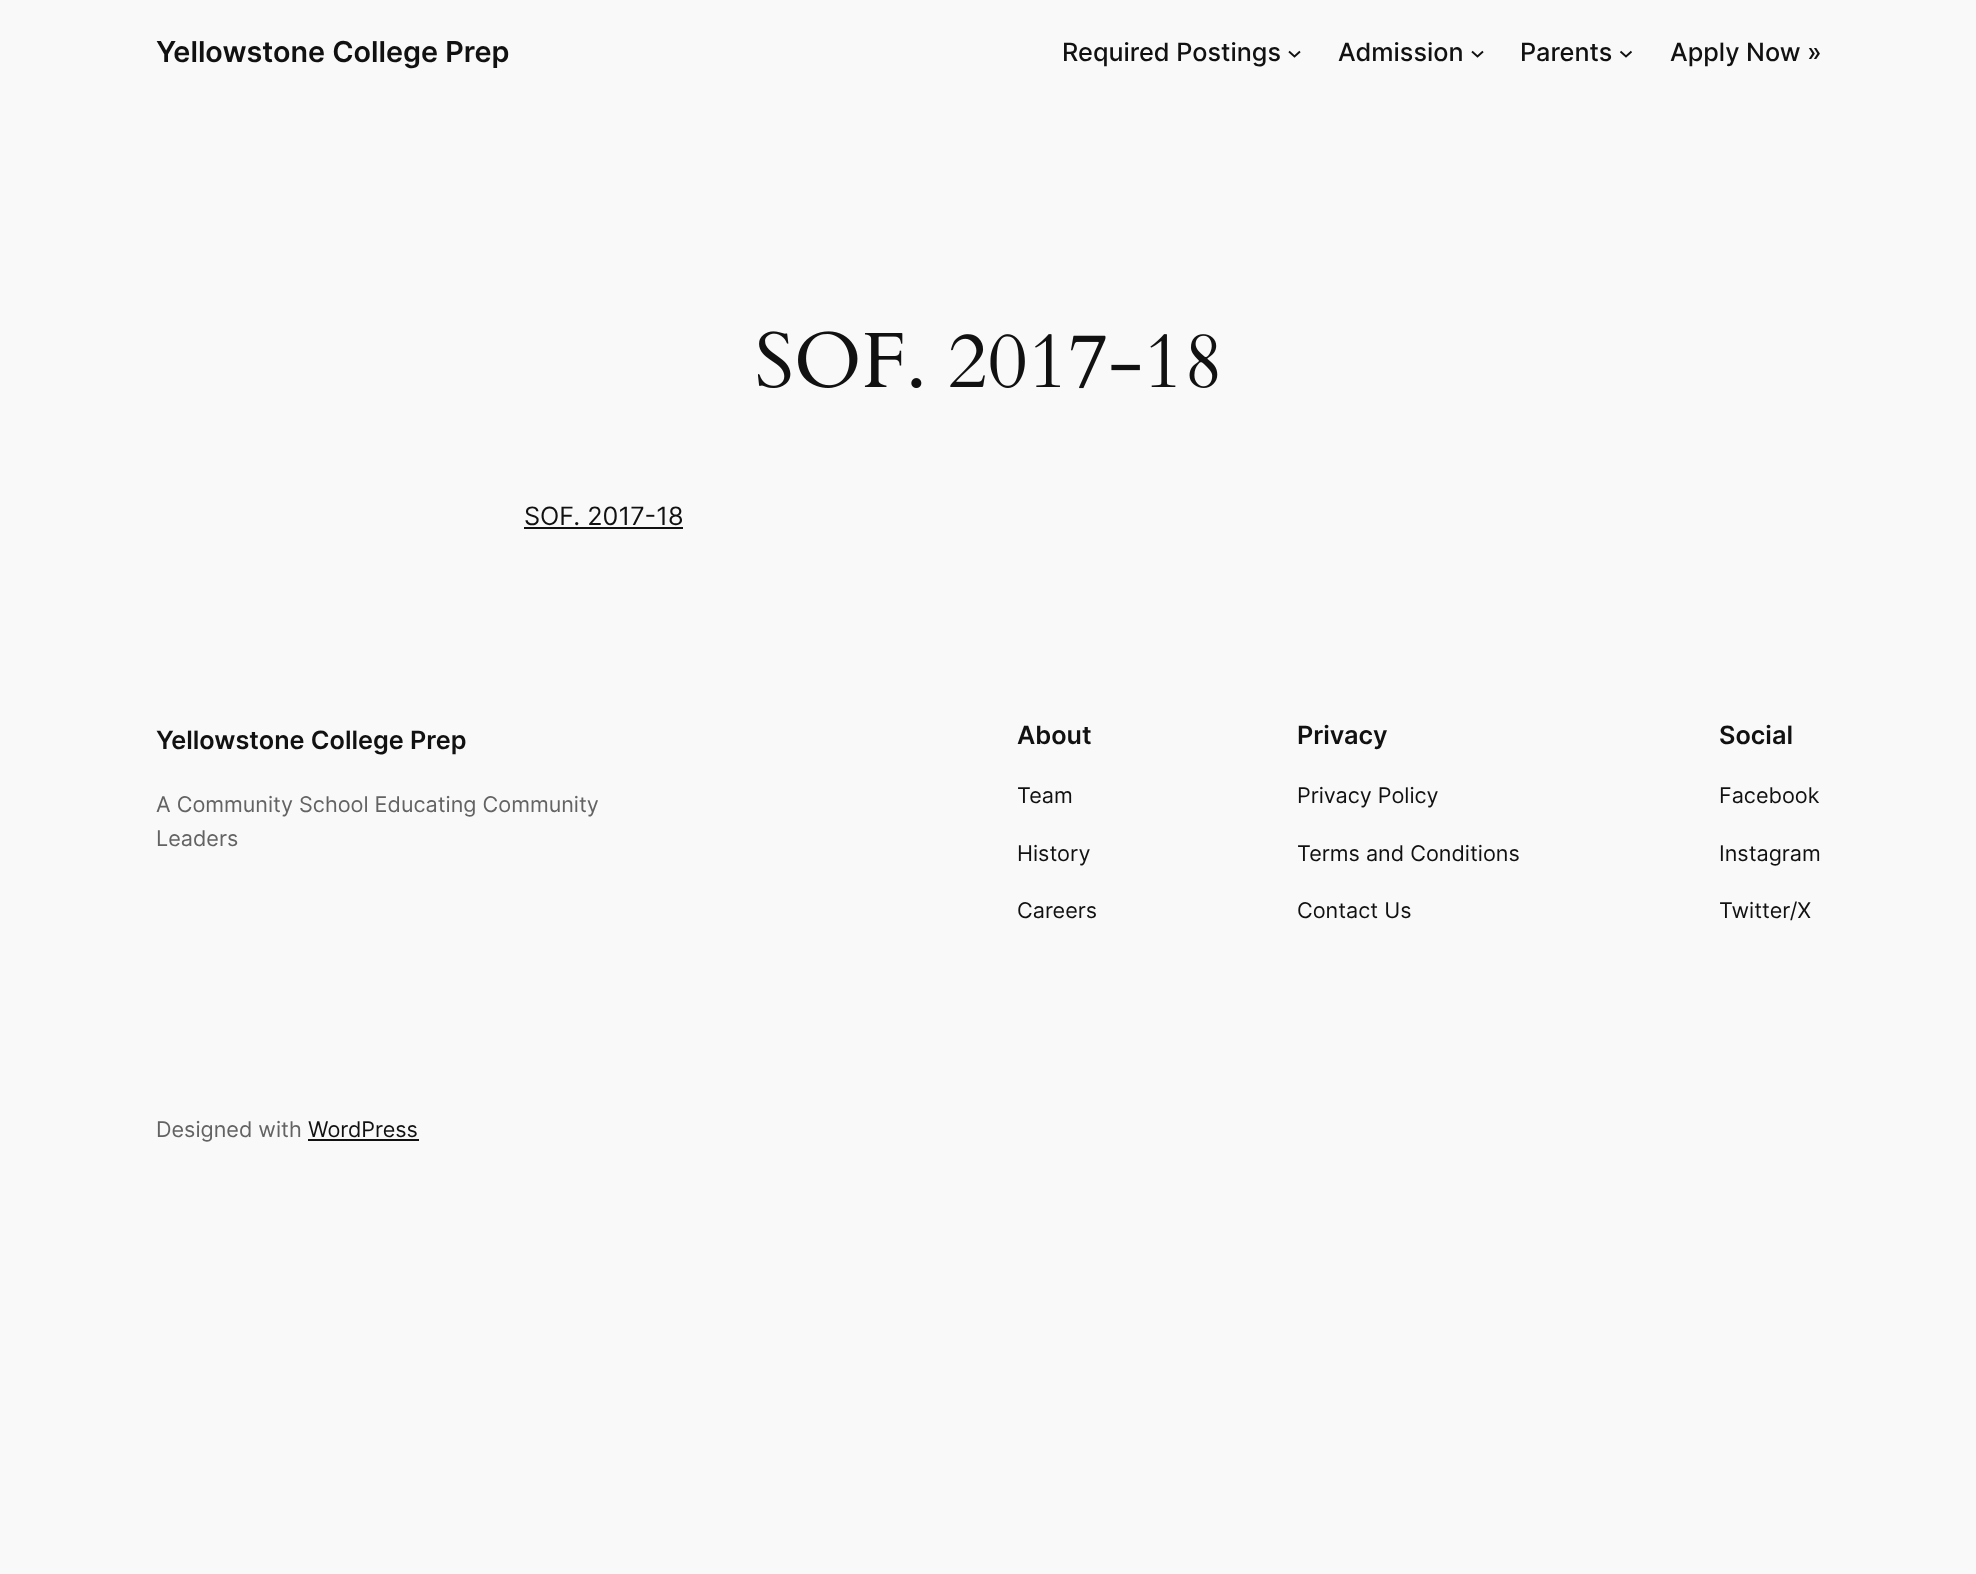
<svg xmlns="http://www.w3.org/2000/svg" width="1976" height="1574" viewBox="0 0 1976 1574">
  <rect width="100%" height="100%" fill="rgb(249,249,249)"/>
  <text x="156" y="62" font-family="Inter" font-size="28.75" font-weight="600" fill="rgb(17,17,17)">Yellowstone College Prep</text>
  <text x="1062" y="61" font-family="Inter" font-size="25.25" font-weight="500" fill="rgb(17,17,17)">Required Postings</text>
  <path d="M1289 51.5L1294.5 56.5L1300 51.5" fill="none" stroke="rgb(17,17,17)" stroke-width="1.9"/>
  <text x="1338" y="61" font-family="Inter" font-size="25.25" font-weight="500" fill="rgb(17,17,17)">Admission</text>
  <path d="M1472 51.5L1477.5 56.5L1483 51.5" fill="none" stroke="rgb(17,17,17)" stroke-width="1.9"/>
  <text x="1520" y="61" font-family="Inter" font-size="25.25" font-weight="500" fill="rgb(17,17,17)">Parents</text>
  <path d="M1620.5 51.5L1626 56.5L1631.5 51.5" fill="none" stroke="rgb(17,17,17)" stroke-width="1.9"/>
  <text x="1670" y="61" font-family="Inter" font-size="25.25" font-weight="500" fill="rgb(17,17,17)">Apply Now »</text>
  <image x="758" y="331" width="460" height="58" href="pic1.png"/>
  <text x="524" y="525" font-family="Inter" font-size="25.25" fill="rgb(17,17,17)">SOF. 2017-18</text>
  <rect x="524" y="527" width="159" height="2" fill="rgb(17,17,17)"/>
  <text x="156" y="749" font-family="Inter" font-size="25.25" font-weight="600" fill="rgb(17,17,17)">Yellowstone College Prep</text>
  <g font-family="Inter" font-size="21.6" fill="rgb(99,99,99)">
    <text>
      <tspan x="156" y="812">A Community School Educating Community</tspan>
      <tspan x="156" y="846">Leaders</tspan>
    </text>
  </g>
  <text x="1017" y="744" font-family="Inter" font-size="25.25" font-weight="600" fill="rgb(17,17,17)">About</text>
  <g font-family="Inter" font-size="21.6" fill="rgb(17,17,17)">
    <text x="1017" y="803">Team</text>
    <text x="1017" y="861">History</text>
    <text x="1017" y="918">Careers</text>
  </g>
  <text x="1297" y="744" font-family="Inter" font-size="25.25" font-weight="600" fill="rgb(17,17,17)">Privacy</text>
  <g font-family="Inter" font-size="21.6" fill="rgb(17,17,17)">
    <text x="1297" y="803">Privacy Policy</text>
    <text x="1297" y="861">Terms and Conditions</text>
    <text x="1297" y="918">Contact Us</text>
  </g>
  <text x="1719" y="744" font-family="Inter" font-size="25.25" font-weight="600" fill="rgb(17,17,17)">Social</text>
  <g font-family="Inter" font-size="21.6" fill="rgb(17,17,17)">
    <text x="1719" y="803">Facebook</text>
    <text x="1719" y="861">Instagram</text>
    <text x="1719" y="918">Twitter/X</text>
  </g>
  <text x="156" y="1137" font-family="Inter" font-size="21.6" fill="rgb(99,99,99)">Designed with</text>
  <text x="308" y="1137" font-family="Inter" font-size="21.6" fill="rgb(17,17,17)">WordPress</text>
  <rect x="308" y="1139" width="111" height="2" fill="rgb(17,17,17)"/>
</svg>
